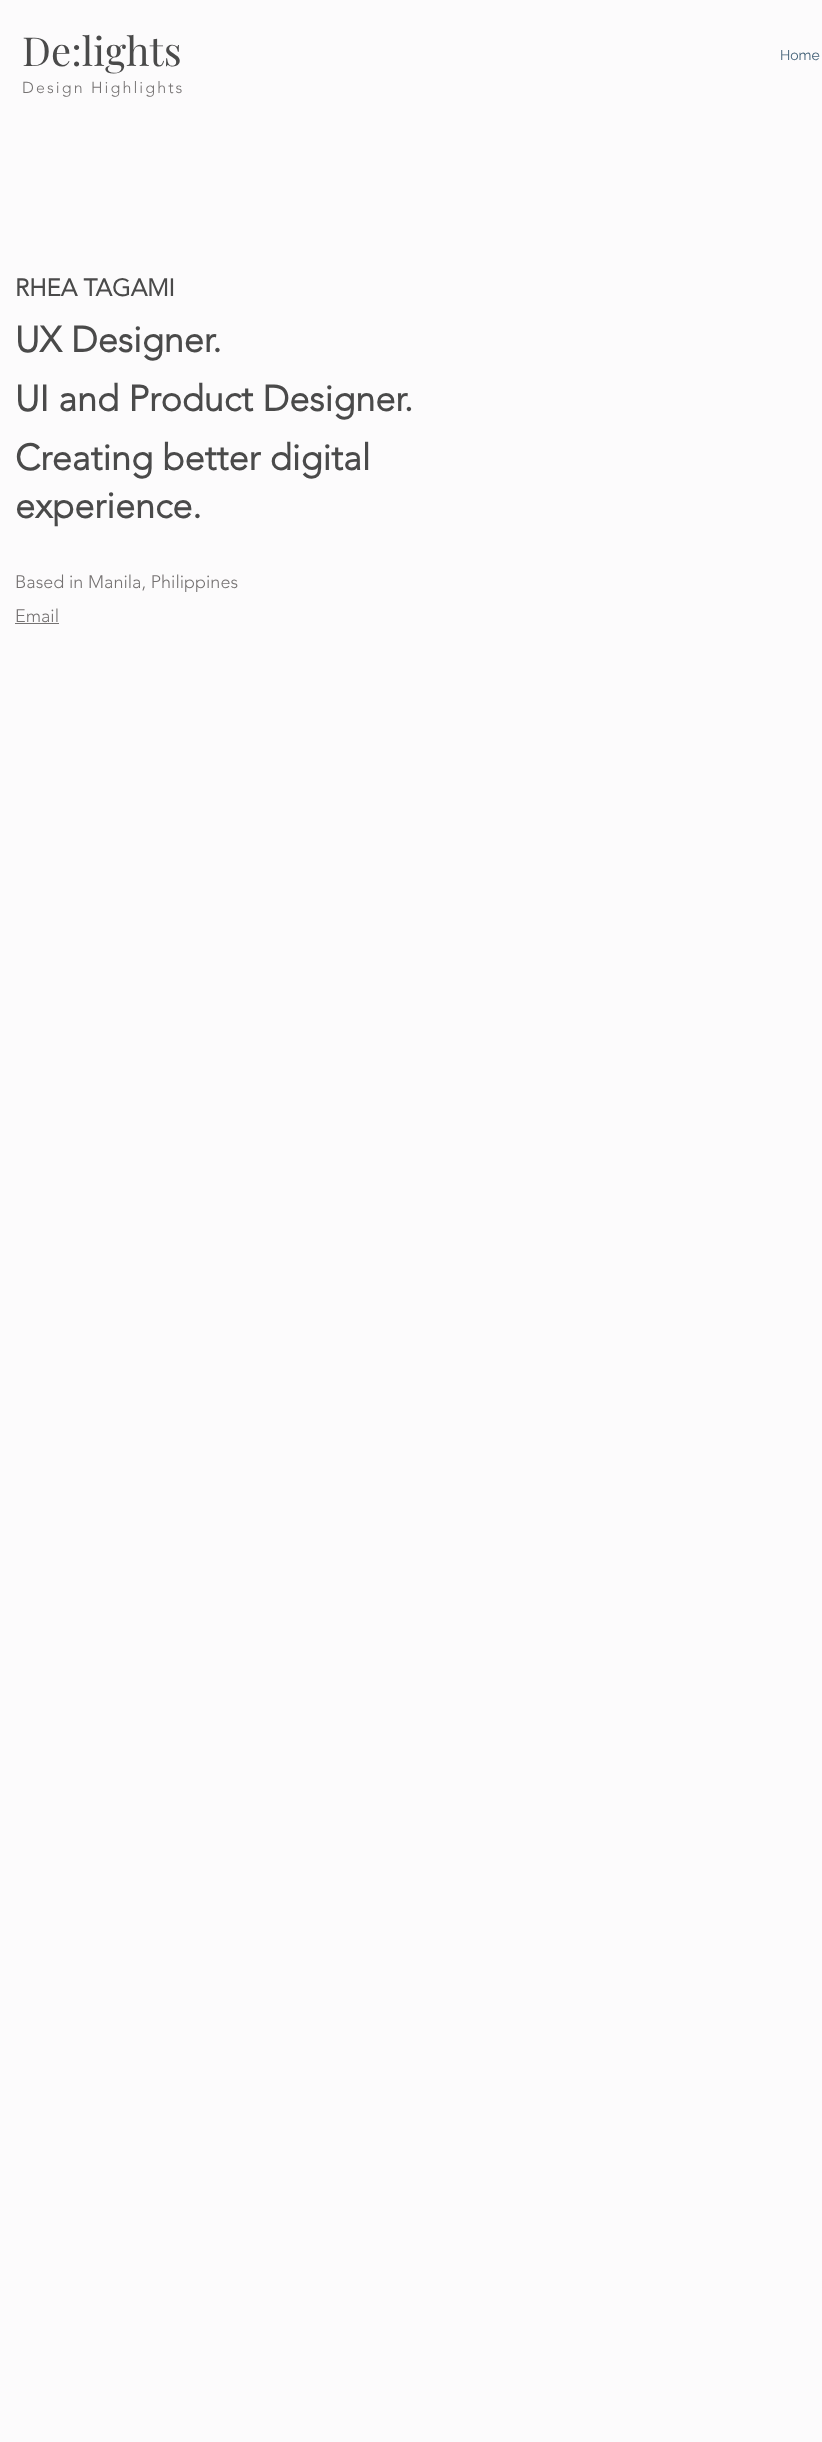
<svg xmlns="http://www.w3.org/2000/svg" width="822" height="2442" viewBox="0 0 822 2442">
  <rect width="100%" height="100%" fill="rgb(252,251,252)"/>
  <text x="22" y="66" font-family="Playfair Display" font-size="40" fill="rgb(74,74,74)">De:lights</text>
  <text x="22" y="93" font-family="'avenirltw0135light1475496'" font-size="16" font-weight="300" letter-spacing="2.1" fill="rgb(117,114,114)">Design Highlights</text>
  <text x="780" y="60" font-family="Raleway" font-size="14" fill="rgb(68,98,120)">Home</text>
  <text x="15" y="296" font-family="'avenirltw0135light1475496'" font-size="24" font-weight="bold" fill="rgb(74,74,74)">RHEA TAGAMI</text>
  <g font-family="'avenirltw0135light1475496'" font-size="36" font-weight="bold" fill="rgb(74,74,74)">
    <text>
      <tspan x="15" y="352">UX Designer.</tspan>
      <tspan x="15" y="411">UI and Product Designer.</tspan>
      <tspan x="15" y="470">Creating better digital</tspan>
      <tspan x="15" y="518">experience.</tspan>
    </text>
  </g>
  <g font-family="'avenirltw0135light1475496'" font-size="18" font-weight="300" fill="rgb(117,114,114)">
    <text>
      <tspan x="15" y="588">Based in Manila, Philippines</tspan>
      <tspan x="15" y="622">Email</tspan>
    </text>
  </g>
  <rect x="15" y="623" width="44" height="1" fill="rgb(117,114,114)"/>
</svg>
